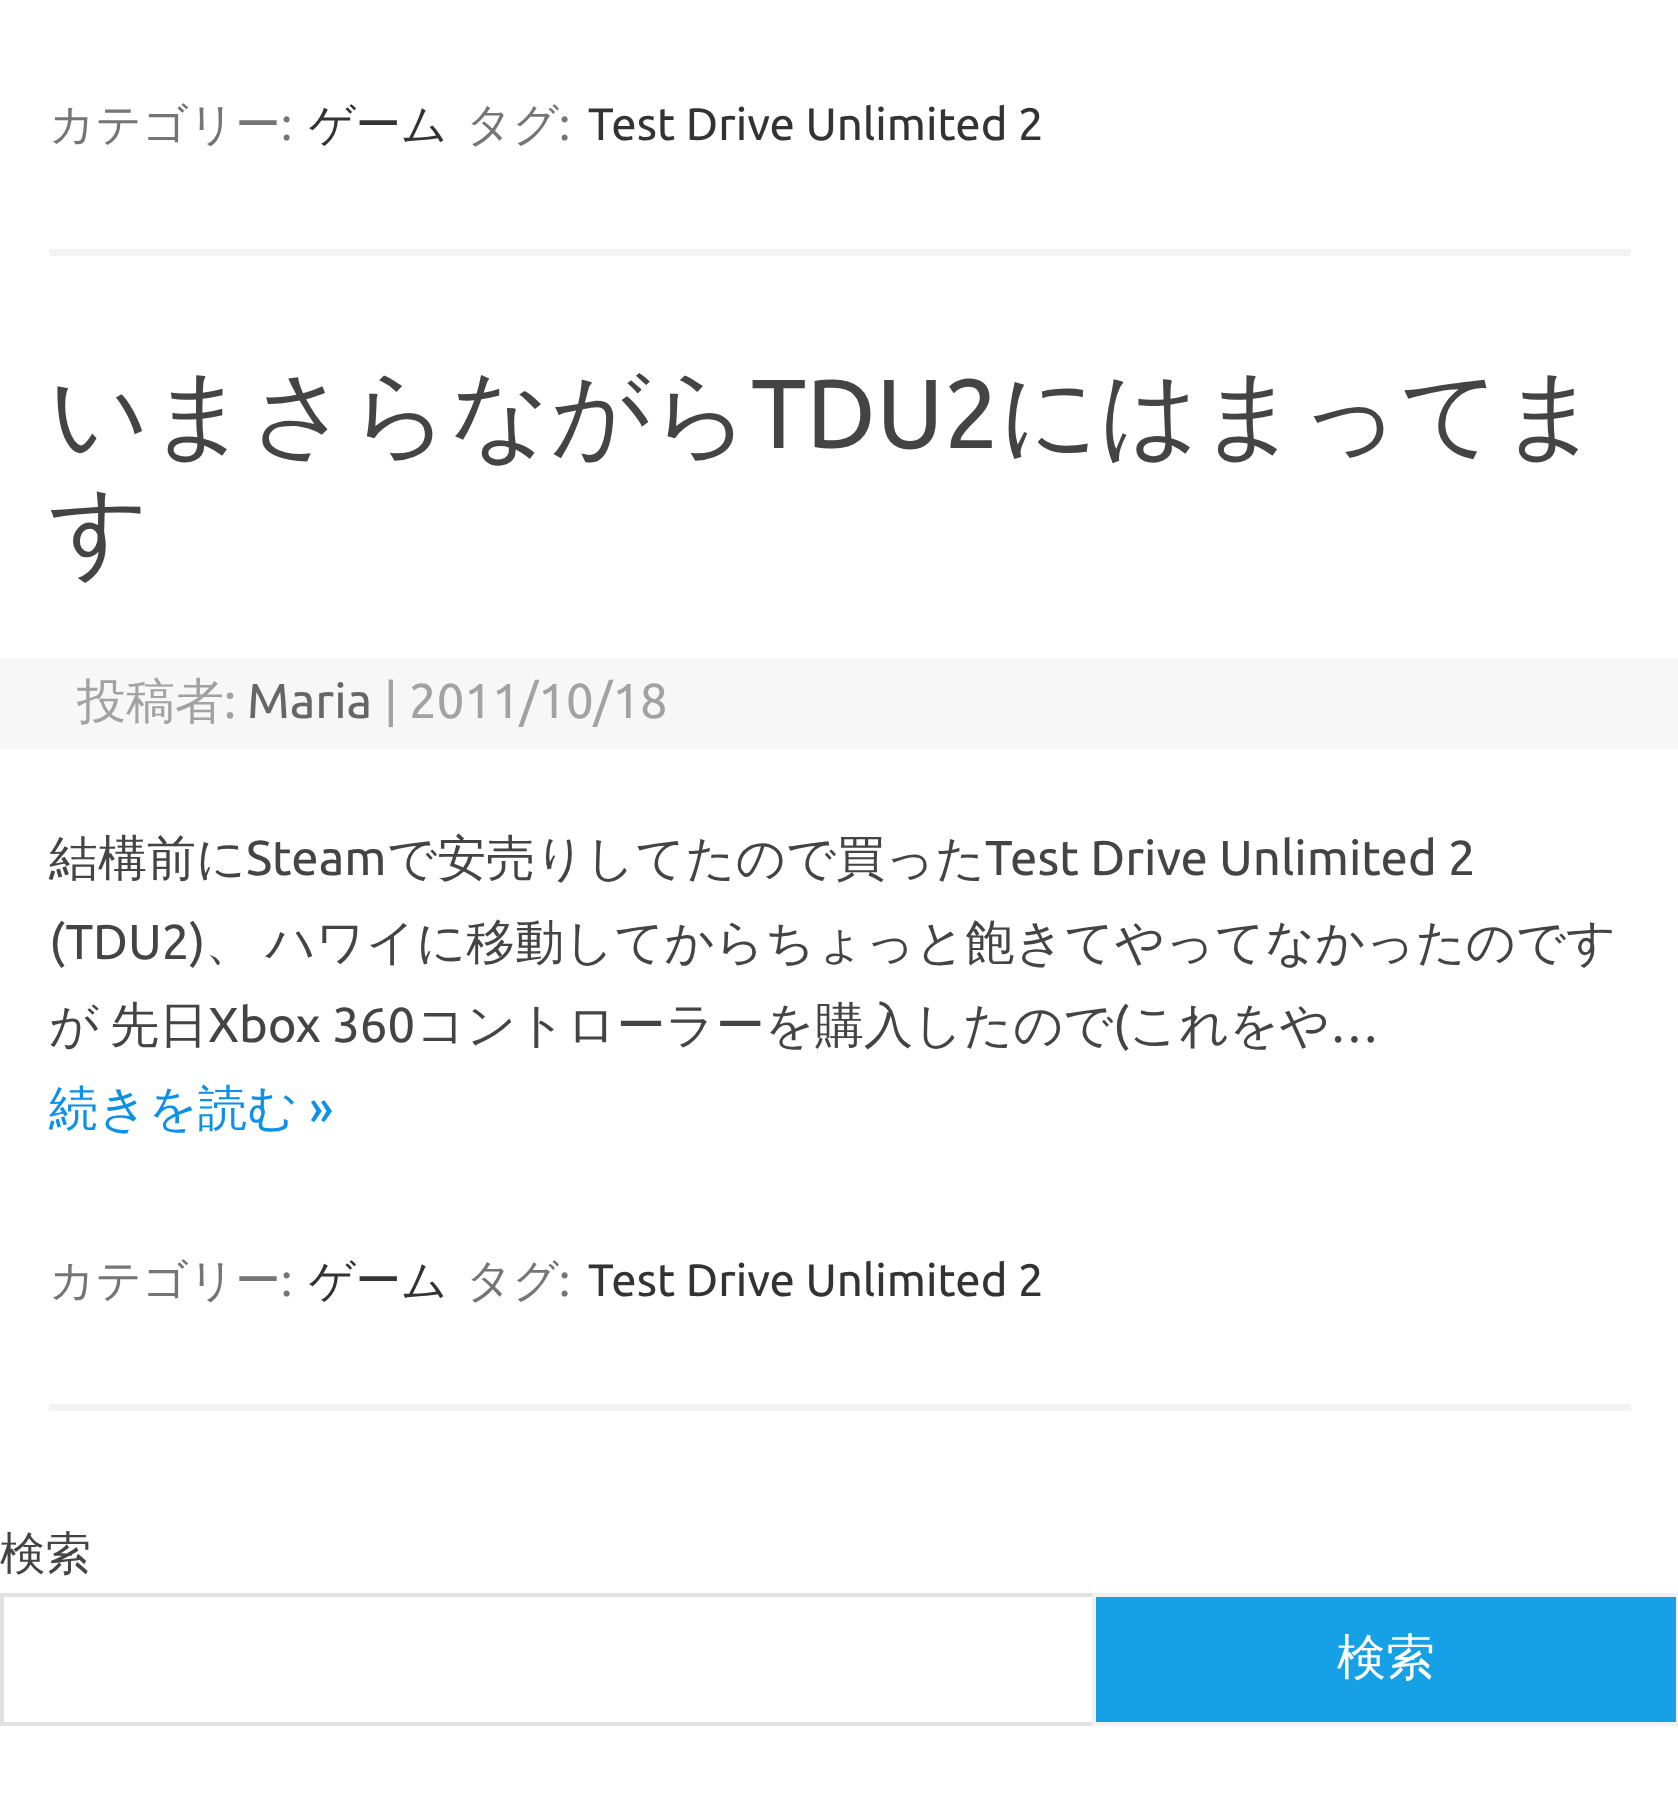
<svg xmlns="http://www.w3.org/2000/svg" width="1678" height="1819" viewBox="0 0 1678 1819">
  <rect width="100%" height="100%" fill="rgb(255,255,255)"/>
  <rect x="49" y="249" width="1582" height="7" fill="rgb(243,243,243)"/>
  <text x="49" y="140" font-family="WenQuanYi Zen Hei" font-size="45.5" font-weight="500" fill="rgb(117,117,117)">カテゴリー</text>
  <text x="281" y="140" font-family="Ubuntu" font-size="45.5" fill="rgb(117,117,117)">:</text>
  <text x="309" y="140" font-family="WenQuanYi Zen Hei" font-size="45.5" font-weight="500" fill="rgb(51,51,51)">ゲーム</text>
  <text x="466" y="140" font-family="WenQuanYi Zen Hei" font-size="45.5" font-weight="500" fill="rgb(117,117,117)">タグ</text>
  <text x="559" y="140" font-family="Ubuntu" font-size="45.5" fill="rgb(117,117,117)">:</text>
  <text x="588" y="140" font-family="Ubuntu" font-size="45.5" fill="rgb(51,51,51)">Test Drive Unlimited 2</text>
  <rect x="49" y="1404" width="1582" height="7" fill="rgb(243,243,243)"/>
  <text x="49" y="448" font-family="WenQuanYi Zen Hei" font-size="98" font-weight="500" fill="rgb(68,68,68)">いまさらながら</text>
  <text x="751" y="448" font-family="Ubuntu" font-size="98" fill="rgb(68,68,68)">TDU2</text>
  <g font-family="WenQuanYi Zen Hei" font-size="98" font-weight="500" fill="rgb(68,68,68)">
    <text x="999" y="448">にはまってま</text>
    <text x="49" y="565">す</text>
  </g>
  <rect x="0" y="658" width="1678" height="91" fill="rgb(247,247,247)"/>
  <text x="77" y="718" font-family="WenQuanYi Zen Hei" font-size="49" font-weight="500" fill="rgb(162,162,162)">投稿者</text>
  <text x="224" y="718" font-family="Ubuntu" font-size="49" fill="rgb(162,162,162)">:</text>
  <text x="247" y="718" font-family="Ubuntu" font-size="49" fill="rgb(102,102,102)">Maria</text>
  <text x="384" y="718" font-family="Ubuntu" font-size="49" fill="rgb(162,162,162)">| 2011/10/18</text>
  <text x="49" y="875" font-family="WenQuanYi Zen Hei" font-size="49" font-weight="500" fill="rgb(68,68,68)">結構前に</text>
  <text x="246" y="875" font-family="Ubuntu" font-size="49" fill="rgb(68,68,68)">Steam</text>
  <text x="387" y="875" font-family="WenQuanYi Zen Hei" font-size="49" font-weight="500" fill="rgb(68,68,68)">で安売りしてたので買った</text>
  <g font-family="Ubuntu" font-size="49" fill="rgb(68,68,68)">
    <text x="985" y="875">Test Drive Unlimited 2</text>
    <text x="49" y="959">(TDU2)</text>
  </g>
  <g font-family="WenQuanYi Zen Hei" font-size="49" font-weight="500" fill="rgb(68,68,68)">
    <text x="205" y="959" word-spacing="-3">、 ハワイに移動してからちょっと飽きてやってなかったのです</text>
    <text x="49" y="1042">が</text>
    <text x="110" y="1042">先日</text>
  </g>
  <text x="208" y="1042" font-family="Ubuntu" font-size="49" fill="rgb(68,68,68)">Xbox 360</text>
  <text x="416" y="1042" font-family="WenQuanYi Zen Hei" font-size="49" font-weight="500" fill="rgb(68,68,68)">コントローラーを購入したので</text>
  <text x="1113" y="1042" font-family="Ubuntu" font-size="49" fill="rgb(68,68,68)">(</text>
  <text x="1129" y="1042" font-family="WenQuanYi Zen Hei" font-size="49" font-weight="500" fill="rgb(68,68,68)">これをや</text>
  <text x="1330" y="1042" font-family="Ubuntu" font-size="49" fill="rgb(68,68,68)">…</text>
  <text x="49" y="1125" font-family="WenQuanYi Zen Hei" font-size="49" font-weight="500" fill="rgb(11,145,234)">続きを読む</text>
  <text x="309" y="1125" font-family="Ubuntu" font-size="49" fill="rgb(11,145,234)">»</text>
  <text x="49" y="1296" font-family="WenQuanYi Zen Hei" font-size="45.5" font-weight="500" fill="rgb(117,117,117)">カテゴリー</text>
  <text x="281" y="1296" font-family="Ubuntu" font-size="45.5" fill="rgb(117,117,117)">:</text>
  <text x="309" y="1296" font-family="WenQuanYi Zen Hei" font-size="45.5" font-weight="500" fill="rgb(51,51,51)">ゲーム</text>
  <text x="466" y="1296" font-family="WenQuanYi Zen Hei" font-size="45.5" font-weight="500" fill="rgb(117,117,117)">タグ</text>
  <text x="559" y="1296" font-family="Ubuntu" font-size="45.5" fill="rgb(117,117,117)">:</text>
  <text x="588" y="1296" font-family="Ubuntu" font-size="45.5" fill="rgb(51,51,51)">Test Drive Unlimited 2</text>
  <text x="0" y="1569" font-family="WenQuanYi Zen Hei" font-size="45.5" font-weight="500" fill="rgb(68,68,68)">検索</text>
  <rect x="2" y="1595" width="1092" height="129" fill="none" stroke="rgb(225,225,225)" stroke-width="4"/>
  <rect x="1094" y="1595" width="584" height="129" fill="rgb(22,161,231)" stroke="rgb(241,241,241)" stroke-width="4"/>
  <text x="1337" y="1674" font-family="WenQuanYi Zen Hei" font-size="49" font-weight="500" fill="rgb(255,255,255)">検索</text>
</svg>
